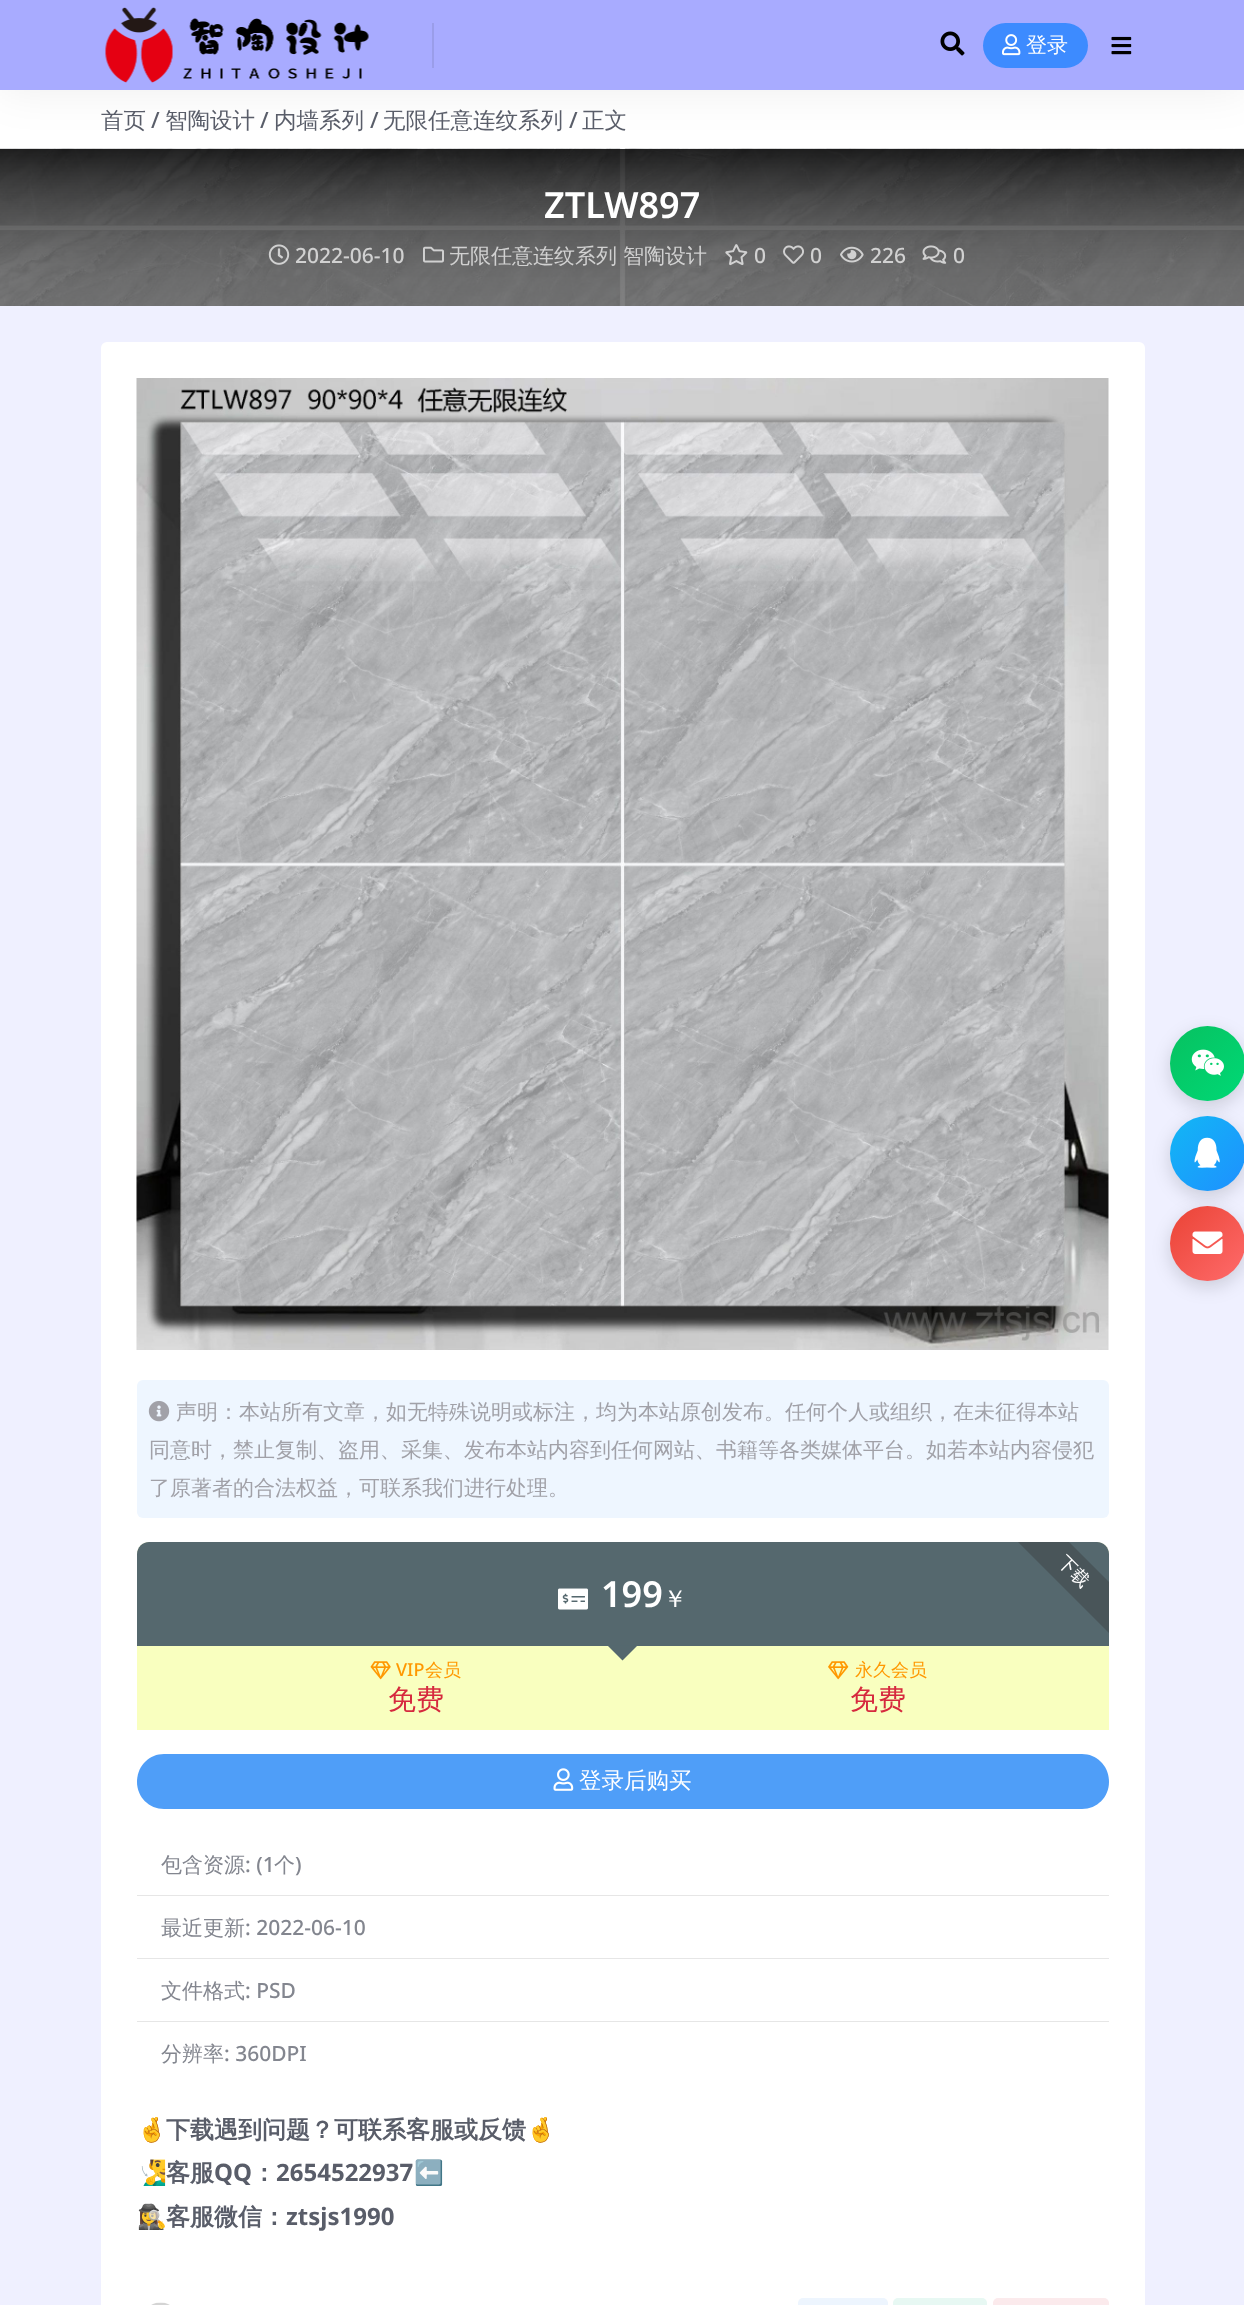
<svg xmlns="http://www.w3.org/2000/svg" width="1244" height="2305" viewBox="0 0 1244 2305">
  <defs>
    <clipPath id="clip1"><rect x="137" y="1542" width="972" height="726" rx="12"/></clipPath>
    <linearGradient id="g1" gradientUnits="userSpaceOnUse" x1="1170" y1="1026" x2="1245" y2="1101"><stop offset="0" stop-color="rgb(7,193,96)"/><stop offset="1" stop-color="rgb(0,217,118)"/></linearGradient>
    <linearGradient id="g2" gradientUnits="userSpaceOnUse" x1="1170" y1="1116" x2="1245" y2="1191"><stop offset="0" stop-color="rgb(18,183,245)"/><stop offset="1" stop-color="rgb(30,144,255)"/></linearGradient>
    <linearGradient id="g3" gradientUnits="userSpaceOnUse" x1="1170" y1="1206" x2="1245" y2="1281"><stop offset="0" stop-color="rgb(234,67,53)"/><stop offset="1" stop-color="rgb(255,107,107)"/></linearGradient>
  </defs>
  <rect width="100%" height="100%" fill="rgb(239,240,255)"/>
  <rect x="0" y="90" width="1244" height="59" fill="rgb(255,255,255)"/>
  <image x="0" y="148" width="1244" height="158" href="pic5.png"/>
  <rect x="0" y="0" width="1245" height="90" fill="rgba(0,0,0,0.07)" filter="blur(22.5px)"/>
  <rect x="0" y="0" width="1244" height="90" fill="rgb(168,171,255)"/>
  <image x="105" y="7" width="264" height="76" href="pic1.png"/>
  <rect x="432" y="23" width="2" height="45" fill="rgb(154,157,233)"/>
  <image x="940" y="31" width="25" height="25" href="pic2.png"/>
  <rect x="983" y="23" width="105" height="45" rx="22.5" fill="rgb(61,139,255)"/>
  <image x="1002" y="34" width="19" height="22" href="pic3.png"/>
  <text x="1026" y="52" font-family="WenQuanYi Zen Hei" font-size="21" font-weight="500" fill="rgb(255,255,255)">登录</text>
  <image x="1111" y="36" width="21" height="19" href="pic4.png"/>
  <text x="101" y="128" font-family="WenQuanYi Zen Hei" font-size="22.5" font-weight="500" fill="rgb(89,93,105)">首页</text>
  <text x="151" y="128" font-family="Noto Sans" font-size="22.5" font-weight="500" fill="rgb(89,93,105)">/</text>
  <text x="165" y="128" font-family="WenQuanYi Zen Hei" font-size="22.5" font-weight="500" fill="rgb(89,93,105)">智陶设计</text>
  <text x="260" y="128" font-family="Noto Sans" font-size="22.5" font-weight="500" fill="rgb(89,93,105)">/</text>
  <text x="274" y="128" font-family="WenQuanYi Zen Hei" font-size="22.5" font-weight="500" fill="rgb(89,93,105)">内墙系列</text>
  <text x="370" y="128" font-family="Noto Sans" font-size="22.5" font-weight="500" fill="rgb(89,93,105)">/</text>
  <text x="383" y="128" font-family="WenQuanYi Zen Hei" font-size="22.5" font-weight="500" fill="rgb(89,93,105)">无限任意连纹系列</text>
  <text x="569" y="128" font-family="Noto Sans" font-size="22.5" font-weight="500" fill="rgb(89,93,105)">/</text>
  <text x="582" y="128" font-family="WenQuanYi Zen Hei" font-size="22.5" font-weight="500" fill="rgb(89,93,105)">正文</text>
  <text x="544" y="218" font-family="Noto Sans" font-size="36" font-weight="600" fill="rgb(255,255,255)">ZTLW897</text>
  <image x="268" y="244" width="22" height="21" href="pic6.png"/>
  <text x="295" y="263" font-family="Noto Sans" font-size="21" font-weight="500" fill="rgb(209,209,209)">2022-06-10</text>
  <image x="423" y="246" width="21" height="17" href="pic7.png"/>
  <g font-family="WenQuanYi Zen Hei" font-size="21" font-weight="500" fill="rgb(209,209,209)">
    <text x="449" y="263">无限任意连纹系列</text>
    <text x="623" y="263">智陶设计</text>
  </g>
  <image x="725" y="244" width="23" height="22" href="pic8.png"/>
  <text x="754" y="263" font-family="Noto Sans" font-size="21" font-weight="500" fill="rgb(209,209,209)">0</text>
  <image x="783" y="245" width="21" height="19" href="pic9.png"/>
  <text x="810" y="263" font-family="Noto Sans" font-size="21" font-weight="500" fill="rgb(209,209,209)">0</text>
  <image x="840" y="246" width="24" height="17" href="pic10.png"/>
  <text x="870" y="263" font-family="Noto Sans" font-size="21" font-weight="500" fill="rgb(209,209,209)">226</text>
  <image x="922" y="245" width="25" height="19" href="pic11.png"/>
  <text x="953" y="263" font-family="Noto Sans" font-size="21" font-weight="500" fill="rgb(209,209,209)">0</text>
  <rect x="101" y="342" width="1044" height="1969" rx="6" fill="rgb(255,255,255)"/>
  <image x="136" y="378" width="973" height="972" href="pic12.png"/>
  <rect x="137" y="1380" width="972" height="138" rx="6" fill="rgb(238,246,255)"/>
  <image x="148" y="1401" width="22" height="21" href="pic13.png"/>
  <g font-family="WenQuanYi Zen Hei" font-size="21" font-weight="500" fill="rgb(161,161,168)">
    <text x="176" y="1419">声明：本站所有文章，如无特殊说明或标注，均为本站原创发布。任何个人或组织，在未征得本站</text>
    <text>
      <tspan x="149" y="1457">同意时，禁止复制、盗用、采集、发布本站内容到任何网站、书籍等各类媒体平台。如若本站内容侵犯</tspan>
      <tspan x="149" y="1495">了原著者的合法权益，可联系我们进行处理。</tspan>
    </text>
  </g>
  <path d="M149 1542H1097C1103.5 1542 1109 1547.5 1109 1554V1730H137V1554C137 1547.5 142.5 1542 149 1542Z" fill="rgb(249,255,191)"/>
  <path d="M149 1542H1097C1103.5 1542 1109 1547.5 1109 1554V1646H137V1554C137 1547.5 142.5 1542 149 1542Z" fill="rgba(52,73,94,0.83)"/>
  <path d="M1069 1542H1018L1109 1633V1582Z" fill="rgb(73,85,89)"/>
  <text x="1057" y="1563" transform="rotate(45 1057 1563)" font-family="WenQuanYi Zen Hei" font-size="18" font-weight="500" fill="rgb(255,255,255)">下载</text>
  <image x="558" y="1588" width="30" height="22" href="pic14.png"/>
  <text x="601" y="1607" font-family="Noto Sans" font-size="36" font-weight="600" fill="rgb(255,255,255)">199</text>
  <text x="663" y="1607" font-family="WenQuanYi Zen Hei" font-size="24" font-weight="500" fill="rgb(255,255,255)">￥</text>
  <path d="M607.5 1645.5H637.5L622.5 1660.5Z" fill="rgb(85,104,110)"/>
  <image x="370" y="1661" width="21" height="19" href="pic15.png"/>
  <text x="396" y="1676" font-family="Noto Sans" font-size="18" font-weight="500" fill="rgb(255,152,0)">VIP</text>
  <text x="425" y="1676" font-family="WenQuanYi Zen Hei" font-size="18" font-weight="500" fill="rgb(255,152,0)">会员</text>
  <text x="388" y="1709" font-family="WenQuanYi Zen Hei" font-size="28" font-weight="500" fill="rgb(214,41,62)">免费</text>
  <image x="828" y="1661" width="21" height="19" href="pic16.png"/>
  <text x="855" y="1676" font-family="WenQuanYi Zen Hei" font-size="18" font-weight="500" fill="rgb(255,152,0)">永久会员</text>
  <text x="850" y="1709" font-family="WenQuanYi Zen Hei" font-size="28" font-weight="500" fill="rgb(214,41,62)">免费</text>
  <path d="M164 1754H1082C1097 1754 1109 1766 1109 1782C1109 1797 1097 1809 1082 1809H164C149 1809 137 1797 137 1782C137 1766 149 1754 164 1754Z" fill="rgb(79,158,248)"/>
  <image x="553" y="1768" width="21" height="23" href="pic17.png"/>
  <text x="579" y="1788" font-family="WenQuanYi Zen Hei" font-size="22.5" font-weight="500" fill="rgb(255,255,255)">登录后购买</text>
  <rect x="137" y="1895" width="972" height="1" fill="rgb(230,230,230)"/>
  <text x="161" y="1872" font-family="WenQuanYi Zen Hei" font-size="21" font-weight="500" fill="rgb(131,134,143)">包含资源</text>
  <text x="245" y="1872" font-family="Noto Sans" font-size="21" font-weight="500" fill="rgb(131,134,143)">: (1</text>
  <text x="274" y="1872" font-family="WenQuanYi Zen Hei" font-size="21" font-weight="500" fill="rgb(131,134,143)">个</text>
  <text x="295" y="1872" font-family="Noto Sans" font-size="21" font-weight="500" fill="rgb(131,134,143)">)</text>
  <rect x="137" y="1958" width="972" height="1" fill="rgb(230,230,230)"/>
  <text x="161" y="1935" font-family="WenQuanYi Zen Hei" font-size="21" font-weight="500" fill="rgb(131,134,143)">最近更新</text>
  <text x="245" y="1935" font-family="Noto Sans" font-size="21" font-weight="500" fill="rgb(131,134,143)">: 2022-06-10</text>
  <rect x="137" y="2021" width="972" height="1" fill="rgb(230,230,230)"/>
  <text x="161" y="1998" font-family="WenQuanYi Zen Hei" font-size="21" font-weight="500" fill="rgb(131,134,143)">文件格式</text>
  <text x="245" y="1998" font-family="Noto Sans" font-size="21" font-weight="500" fill="rgb(131,134,143)">: PSD</text>
  <text x="161" y="2061" font-family="WenQuanYi Zen Hei" font-size="21" font-weight="500" fill="rgb(131,134,143)">分辨率</text>
  <text x="224" y="2061" font-family="Noto Sans" font-size="21" font-weight="500" fill="rgb(131,134,143)">: 360DPI</text>
  <g clip-path="url(#clip1)">
    <text x="137" y="2138" font-family="Noto Color Emoji" font-size="24" font-weight="bold" fill="rgb(89,93,105)">🤞</text>
  </g>
  <text x="166" y="2138" font-family="WenQuanYi Zen Hei" font-size="24" font-weight="bold" fill="rgb(89,93,105)">下载遇到问题？可联系客服或反馈</text>
  <text x="526" y="2138" font-family="Noto Color Emoji" font-size="24" font-weight="bold" fill="rgb(89,93,105)">🤞</text>
  <g clip-path="url(#clip1)">
    <text x="137" y="2181" font-family="Noto Color Emoji" font-size="24" font-weight="bold" fill="rgb(89,93,105)">🧏‍♂️</text>
  </g>
  <text x="166" y="2181" font-family="WenQuanYi Zen Hei" font-size="24" font-weight="bold" fill="rgb(89,93,105)">客服</text>
  <text x="214" y="2181" font-family="Noto Sans" font-size="24" font-weight="bold" fill="rgb(89,93,105)">QQ</text>
  <text x="252" y="2181" font-family="WenQuanYi Zen Hei" font-size="24" font-weight="bold" fill="rgb(89,93,105)">：</text>
  <text x="276" y="2181" font-family="Noto Sans" font-size="24" font-weight="bold" fill="rgb(89,93,105)">2654522937</text>
  <text x="414" y="2181" font-family="Noto Color Emoji" font-size="24" font-weight="bold" fill="rgb(89,93,105)">⬅️</text>
  <g clip-path="url(#clip1)">
    <text x="137" y="2225" font-family="Noto Color Emoji" font-size="24" font-weight="bold" fill="rgb(89,93,105)">🕵️‍♀️</text>
  </g>
  <text x="166" y="2225" font-family="WenQuanYi Zen Hei" font-size="24" font-weight="bold" fill="rgb(89,93,105)">客服微信：</text>
  <text x="286" y="2225" font-family="Noto Sans" font-size="24" font-weight="bold" fill="rgb(89,93,105)">ztsjs1990</text>
  <image x="151" y="2302" width="19" height="3" href="pic18.png"/>
  <rect x="798" y="2298" width="90" height="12" rx="5" fill="rgb(237,245,254)"/>
  <rect x="893" y="2298" width="94" height="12" rx="5" fill="rgb(231,248,243)"/>
  <rect x="993" y="2298" width="116" height="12" rx="5" fill="rgb(251,234,236)"/>
  <rect x="1170" y="1032" width="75" height="75" rx="37.5" fill="rgba(0,0,0,0.15)" filter="blur(9px)"/>
  <circle cx="1207.5" cy="1063.5" r="37.5" fill="url(#g1)"/>
  <image x="1191" y="1049" width="33" height="27" href="pic19.png"/>
  <rect x="1170" y="1122" width="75" height="75" rx="37.5" fill="rgba(0,0,0,0.15)" filter="blur(9px)"/>
  <circle cx="1207.5" cy="1153.5" r="37.5" fill="url(#g2)"/>
  <image x="1194" y="1137" width="26" height="31" href="pic20.png"/>
  <rect x="1170" y="1212" width="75" height="75" rx="37.5" fill="rgba(0,0,0,0.15)" filter="blur(9px)"/>
  <circle cx="1207.5" cy="1243.5" r="37.5" fill="url(#g3)"/>
  <image x="1192" y="1231" width="31" height="23" href="pic21.png"/>
</svg>
